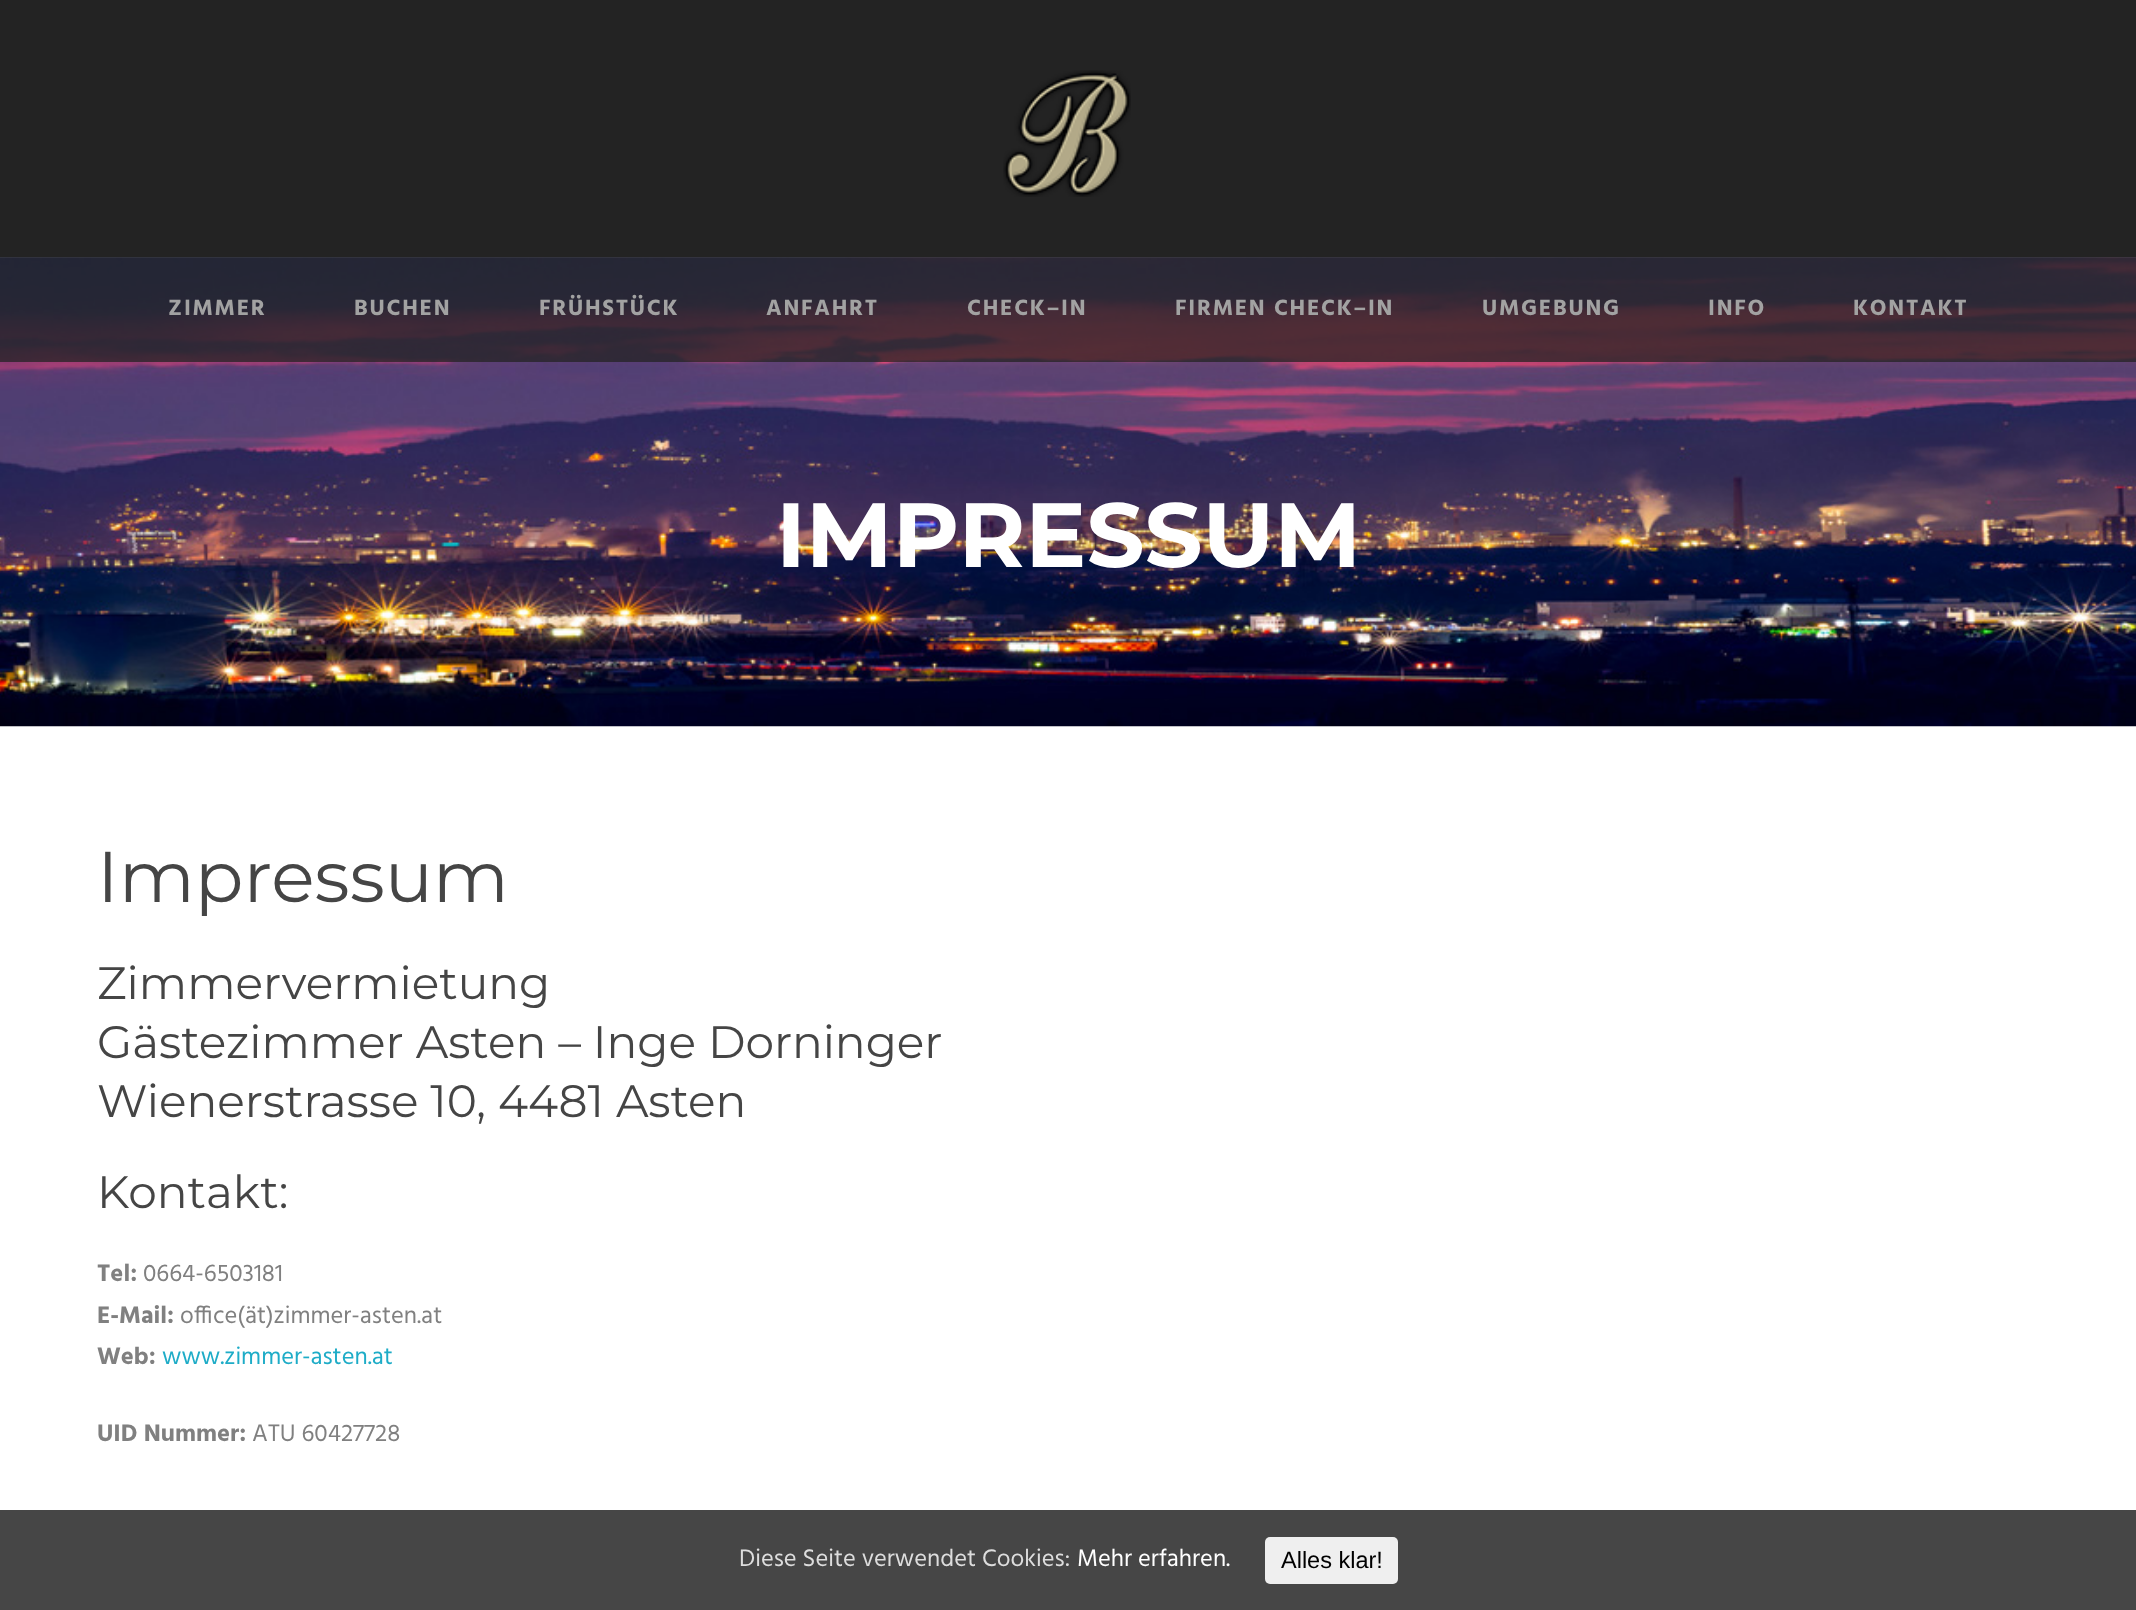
<svg xmlns="http://www.w3.org/2000/svg" width="2136" height="1610" viewBox="0 0 2136 1610">
  <rect width="100%" height="100%" fill="rgb(255,255,255)"/>
  <rect x="0" y="0" width="2136" height="257" fill="rgb(35,35,35)"/>
  <image x="1003" y="70" width="128" height="127" href="pic1.png"/>
  <image x="0" y="257" width="2136" height="470" href="pic2.png"/>
  <rect x="0" y="257" width="2136" height="105" fill="rgba(35,35,35,0.75)"/>
  <g font-family="Hind" font-size="22.75" font-weight="bold" letter-spacing="1.75" fill="rgb(162,162,162)">
    <text x="168" y="315">ZIMMER</text>
    <text x="354" y="315">BUCHEN</text>
    <text x="539" y="315">FRÜHSTÜCK</text>
    <text x="766" y="315">ANFAHRT</text>
    <text x="967" y="315">CHECK–IN</text>
    <text x="1175" y="315">FIRMEN CHECK–IN</text>
    <text x="1482" y="315">UMGEBUNG</text>
    <text x="1708" y="315">INFO</text>
    <text x="1853" y="315">KONTAKT</text>
  </g>
  <text x="776" y="567" font-family="Montserrat" font-size="91" font-weight="bold" fill="rgb(255,255,255)">IMPRESSUM</text>
  <text x="97" y="902" font-family="Montserrat" font-size="71.75" fill="rgb(69,69,69)">Impressum</text>
  <g font-family="Montserrat" font-size="45.5" fill="rgb(69,69,69)">
    <text>
      <tspan x="97" y="999">Zimmervermietung</tspan>
      <tspan x="97" y="1058">Gästezimmer Asten – Inge Dorninger</tspan>
      <tspan x="97" y="1117">Wienerstrasse 10, 4481 Asten</tspan>
    </text>
    <text x="97" y="1208">Kontakt:</text>
  </g>
  <text x="97" y="1281" font-family="Hind" font-size="24.5" font-weight="bold" fill="rgb(128,128,128)">Tel:</text>
  <text x="143" y="1281" font-family="Hind" font-size="24.5" fill="rgb(128,128,128)">0664-6503181</text>
  <text x="97" y="1323" font-family="Hind" font-size="24.5" font-weight="bold" fill="rgb(128,128,128)">E-Mail:</text>
  <text x="180" y="1323" font-family="Hind" font-size="24.5" fill="rgb(128,128,128)">office(ät)zimmer-asten.at</text>
  <text x="97" y="1364" font-family="Hind" font-size="24.5" font-weight="bold" fill="rgb(128,128,128)">Web:</text>
  <text x="162" y="1364" font-family="Hind" font-size="24.5" fill="rgb(30,172,199)">www.zimmer-asten.at</text>
  <text x="97" y="1441" font-family="Hind" font-size="24.5" font-weight="bold" fill="rgb(128,128,128)">UID Nummer:</text>
  <text x="252" y="1441" font-family="Hind" font-size="24.5" fill="rgb(128,128,128)">ATU 60427728</text>
  <rect x="0" y="1510" width="2136" height="100" fill="rgb(70,70,70)"/>
  <text x="739" y="1566" font-family="Hind" font-size="24.5" fill="rgb(221,221,221)">Diese Seite verwendet Cookies:</text>
  <text x="1077" y="1566" font-family="Hind" font-size="24.5" fill="rgb(255,255,255)">Mehr erfahren.</text>
  <rect x="1265" y="1537" width="133" height="47" rx="5" fill="rgb(239,239,239)"/>
  <text x="1281" y="1568" font-family="Liberation Sans" font-size="23.5" fill="rgb(0,0,0)">Alles klar!</text>
</svg>
